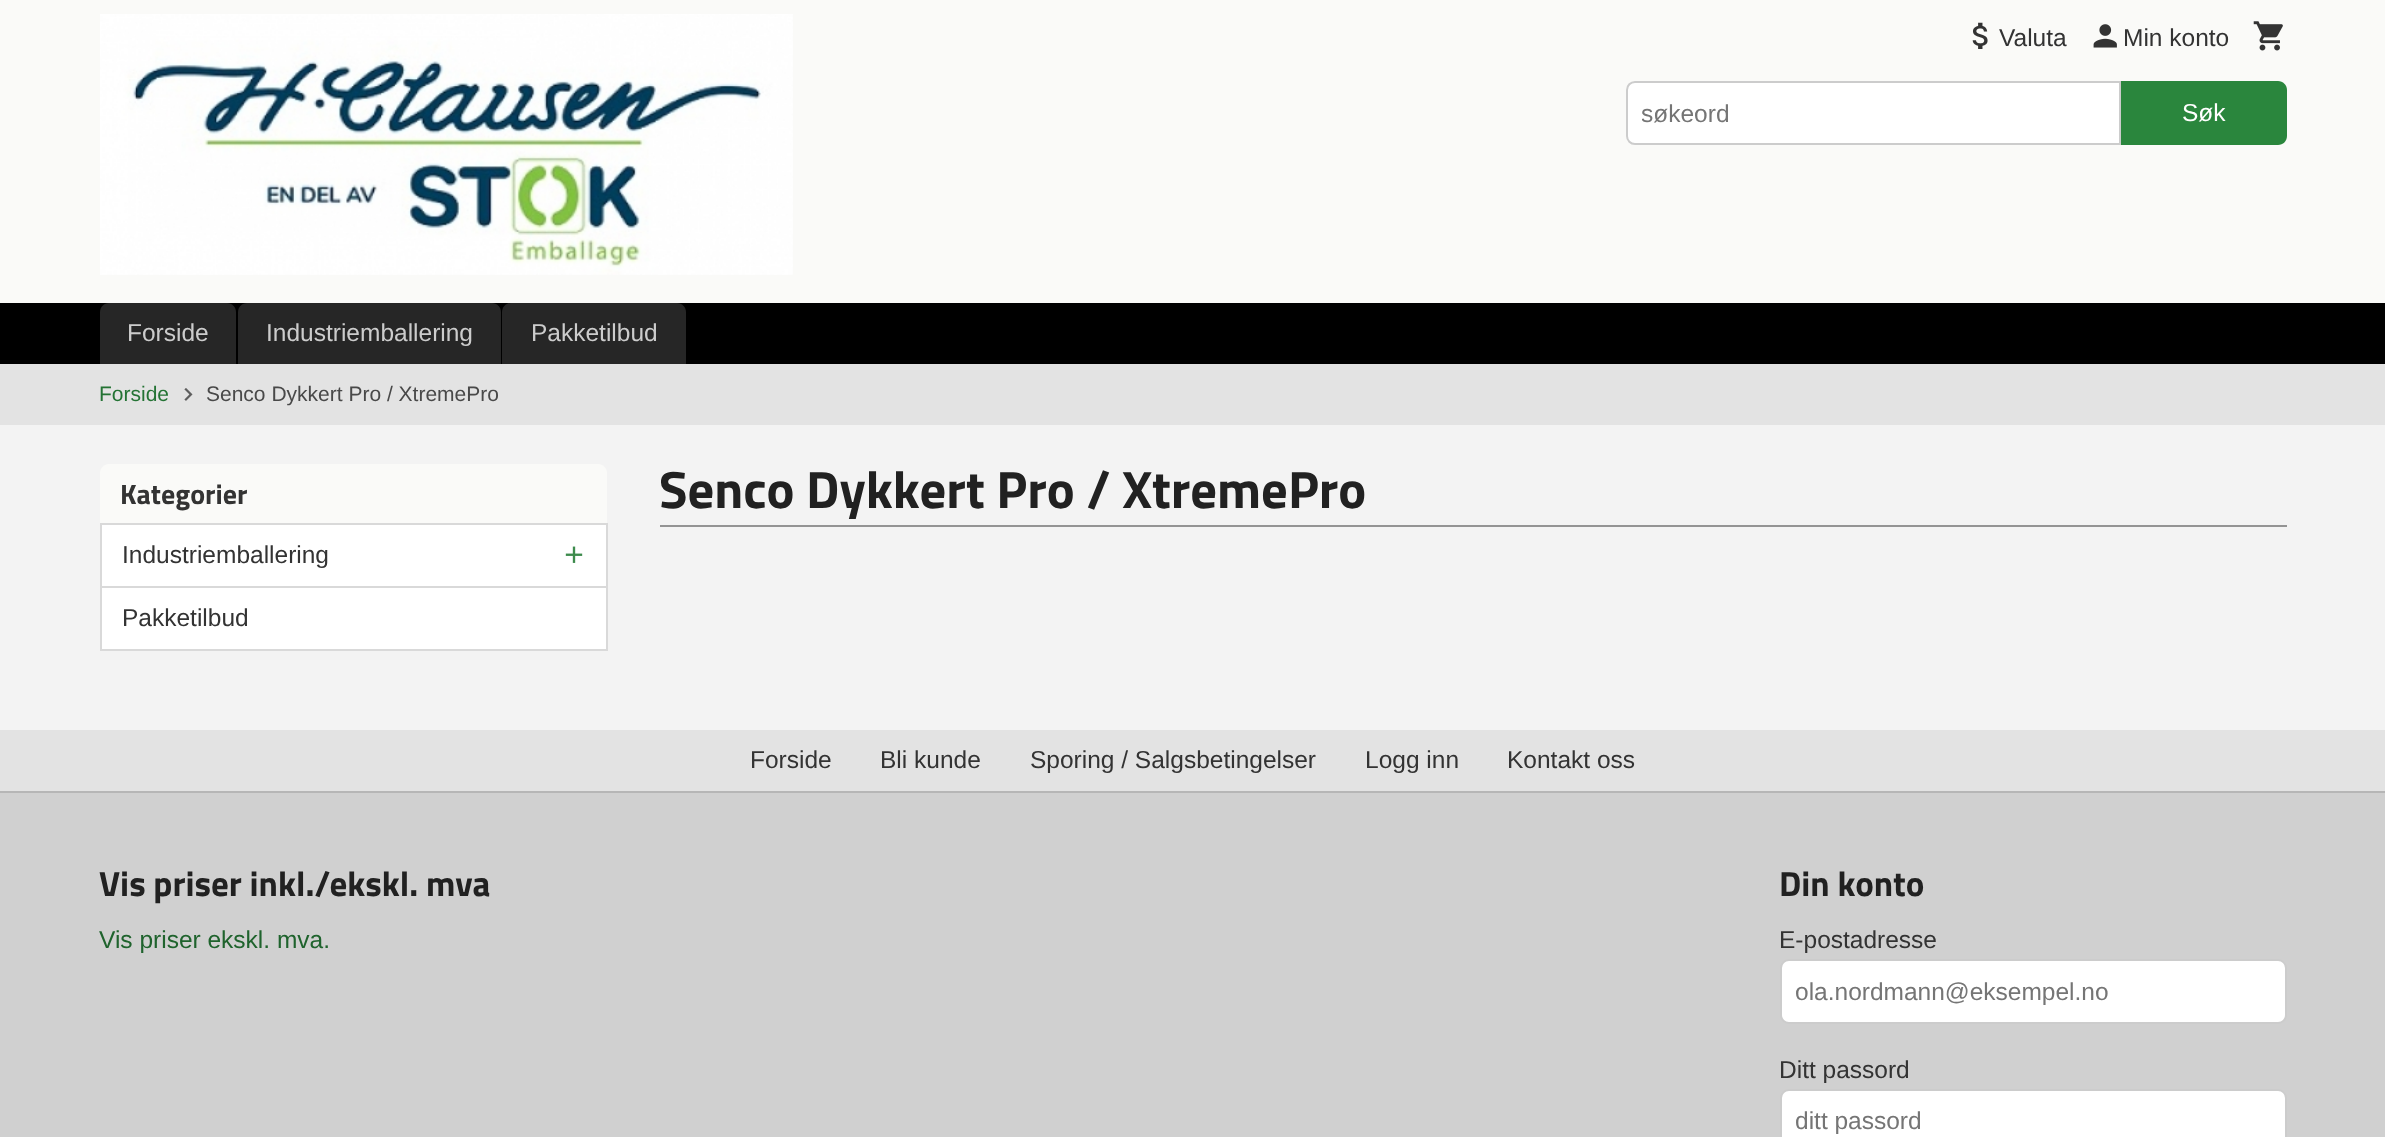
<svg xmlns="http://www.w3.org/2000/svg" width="2385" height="1137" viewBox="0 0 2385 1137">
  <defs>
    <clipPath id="clip1"><rect x="1642" y="100" width="463" height="28"/></clipPath>
    <clipPath id="clip2"><rect x="1796" y="977" width="476" height="28"/></clipPath>
    <clipPath id="clip3"><rect x="1796" y="1106" width="476" height="28"/></clipPath>
  </defs>
  <rect width="100%" height="100%" fill="rgb(243,243,243)"/>
  <rect x="0" y="0" width="2385" height="303" fill="rgb(250,250,248)"/>
  <image x="100" y="14" width="693" height="261" href="pic1.png"/>
  <image x="1972" y="22" width="16" height="27" href="pic2.png"/>
  <text x="1999" y="46" font-family="Liberation Sans" font-size="24.5" fill="rgb(51,51,51)">Valuta</text>
  <image x="2093" y="24" width="24" height="24" href="pic3.png"/>
  <text x="2123" y="46" font-family="Liberation Sans" font-size="24.5" fill="rgb(51,51,51)">Min konto</text>
  <image x="2253" y="21" width="30" height="30" href="pic4.png"/>
  <path d="M1635 82H2120V144H1635C1630.5 144 1627 140.5 1627 136V90C1627 85.5 1630.5 82 1635 82Z" fill="rgb(255,255,255)" stroke="rgb(204,204,204)" stroke-width="2"/>
  <g clip-path="url(#clip1)">
    <text x="1641" y="122" font-family="Liberation Sans" font-size="24.5" fill="rgb(117,117,117)">søkeord</text>
  </g>
  <path d="M2121 81H2278C2283 81 2287 85 2287 90V136C2287 141 2283 145 2278 145H2121Z" fill="rgb(42,134,61)"/>
  <text x="2182" y="121" font-family="Liberation Sans" font-size="24.5" fill="rgb(255,255,255)">Søk</text>
  <rect x="0" y="303" width="2385" height="61" fill="rgb(0,0,0)"/>
  <path d="M109 303H227C232 303 236 307 236 312V364H100V312C100 307 104 303 109 303Z" fill="rgb(38,38,38)"/>
  <text x="127" y="341" font-family="Liberation Sans" font-size="24.5" fill="rgb(204,204,204)">Forside</text>
  <path d="M247 303H492C497 303 501 307 501 312V364H238V312C238 307 242 303 247 303Z" fill="rgb(38,38,38)"/>
  <text x="266" y="341" font-family="Liberation Sans" font-size="24.5" fill="rgb(204,204,204)">Industriemballering</text>
  <path d="M511 303H677C682 303 686 307 686 312V364H502V312C502 307 506 303 511 303Z" fill="rgb(38,38,38)"/>
  <text x="531" y="341" font-family="Liberation Sans" font-size="24.5" fill="rgb(204,204,204)">Pakketilbud</text>
  <rect x="0" y="364" width="2385" height="61" fill="rgb(227,227,227)"/>
  <text x="99" y="401" font-family="Liberation Sans" font-size="21" fill="rgb(36,115,52)">Forside</text>
  <image x="184" y="388" width="9" height="13" href="pic5.png"/>
  <text x="206" y="401" font-family="Liberation Sans" font-size="21" fill="rgb(73,73,73)">Senco Dykkert Pro / XtremePro</text>
  <path d="M109 464H598C603 464 607 468 607 473V523H100V473C100 468 104 464 109 464Z" fill="rgb(250,250,248)"/>
  <text x="120" y="504" font-family="Titillium Web" font-size="28" font-weight="bold" fill="rgb(51,51,51)">Kategorier</text>
  <rect x="102" y="525" width="504" height="124" fill="rgb(255,255,255)"/>
  <rect x="100" y="523" width="507" height="2" fill="rgb(217,217,217)"/>
  <rect x="606" y="523" width="2" height="128" fill="rgb(217,217,217)"/>
  <rect x="100" y="523" width="2" height="128" fill="rgb(217,217,217)"/>
  <rect x="102" y="586" width="504" height="2" fill="rgb(217,217,217)"/>
  <text x="122" y="563" font-family="Liberation Sans" font-size="24.5" fill="rgb(51,51,51)">Industriemballering</text>
  <image x="565" y="546" width="18" height="17" href="pic6.png"/>
  <rect x="102" y="649" width="504" height="2" fill="rgb(217,217,217)"/>
  <text x="122" y="626" font-family="Liberation Sans" font-size="24.5" fill="rgb(51,51,51)">Pakketilbud</text>
  <rect x="660" y="525" width="1627" height="2" fill="rgb(147,147,147)"/>
  <text x="659" y="508" font-family="Titillium Web" font-size="52.5" font-weight="bold" fill="rgb(33,33,33)">Senco Dykkert Pro / XtremePro</text>
  <rect x="0" y="730" width="2385" height="61" fill="rgb(227,227,227)"/>
  <g font-family="Liberation Sans" font-size="24.5" fill="rgb(51,51,51)">
    <text x="750" y="768">Forside</text>
    <text x="880" y="768">Bli kunde</text>
    <text x="1030" y="768">Sporing / Salgsbetingelser</text>
    <text x="1365" y="768">Logg inn</text>
    <text x="1507" y="768">Kontakt oss</text>
  </g>
  <rect x="0" y="793" width="2385" height="344" fill="rgb(208,208,208)"/>
  <rect x="0" y="791" width="2385" height="2" fill="rgb(182,182,182)"/>
  <text x="99" y="896" font-family="Titillium Web" font-size="35" font-weight="bold" fill="rgb(33,33,33)">Vis priser inkl./ekskl. mva</text>
  <text x="99" y="948" font-family="Liberation Sans" font-size="24.5" fill="rgb(31,99,45)">Vis priser ekskl. mva.</text>
  <text x="1779" y="896" font-family="Titillium Web" font-size="35" font-weight="bold" fill="rgb(33,33,33)">Din konto</text>
  <text x="1779" y="948" font-family="Liberation Sans" font-size="24.5" fill="rgb(51,51,51)">E-postadresse</text>
  <rect x="1781" y="960" width="505" height="63" rx="8" fill="rgb(255,255,255)" stroke="rgb(204,204,204)" stroke-width="2"/>
  <g clip-path="url(#clip2)">
    <text x="1795" y="1000" font-family="Liberation Sans" font-size="24.5" fill="rgb(117,117,117)">ola.nordmann@eksempel.no</text>
  </g>
  <text x="1779" y="1078" font-family="Liberation Sans" font-size="24.5" fill="rgb(51,51,51)">Ditt passord</text>
  <rect x="1781" y="1090" width="505" height="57" rx="8" fill="rgb(255,255,255)" stroke="rgb(204,204,204)" stroke-width="2"/>
  <g clip-path="url(#clip3)">
    <text x="1795" y="1129" font-family="Liberation Sans" font-size="24.5" fill="rgb(117,117,117)">ditt passord</text>
  </g>
</svg>
